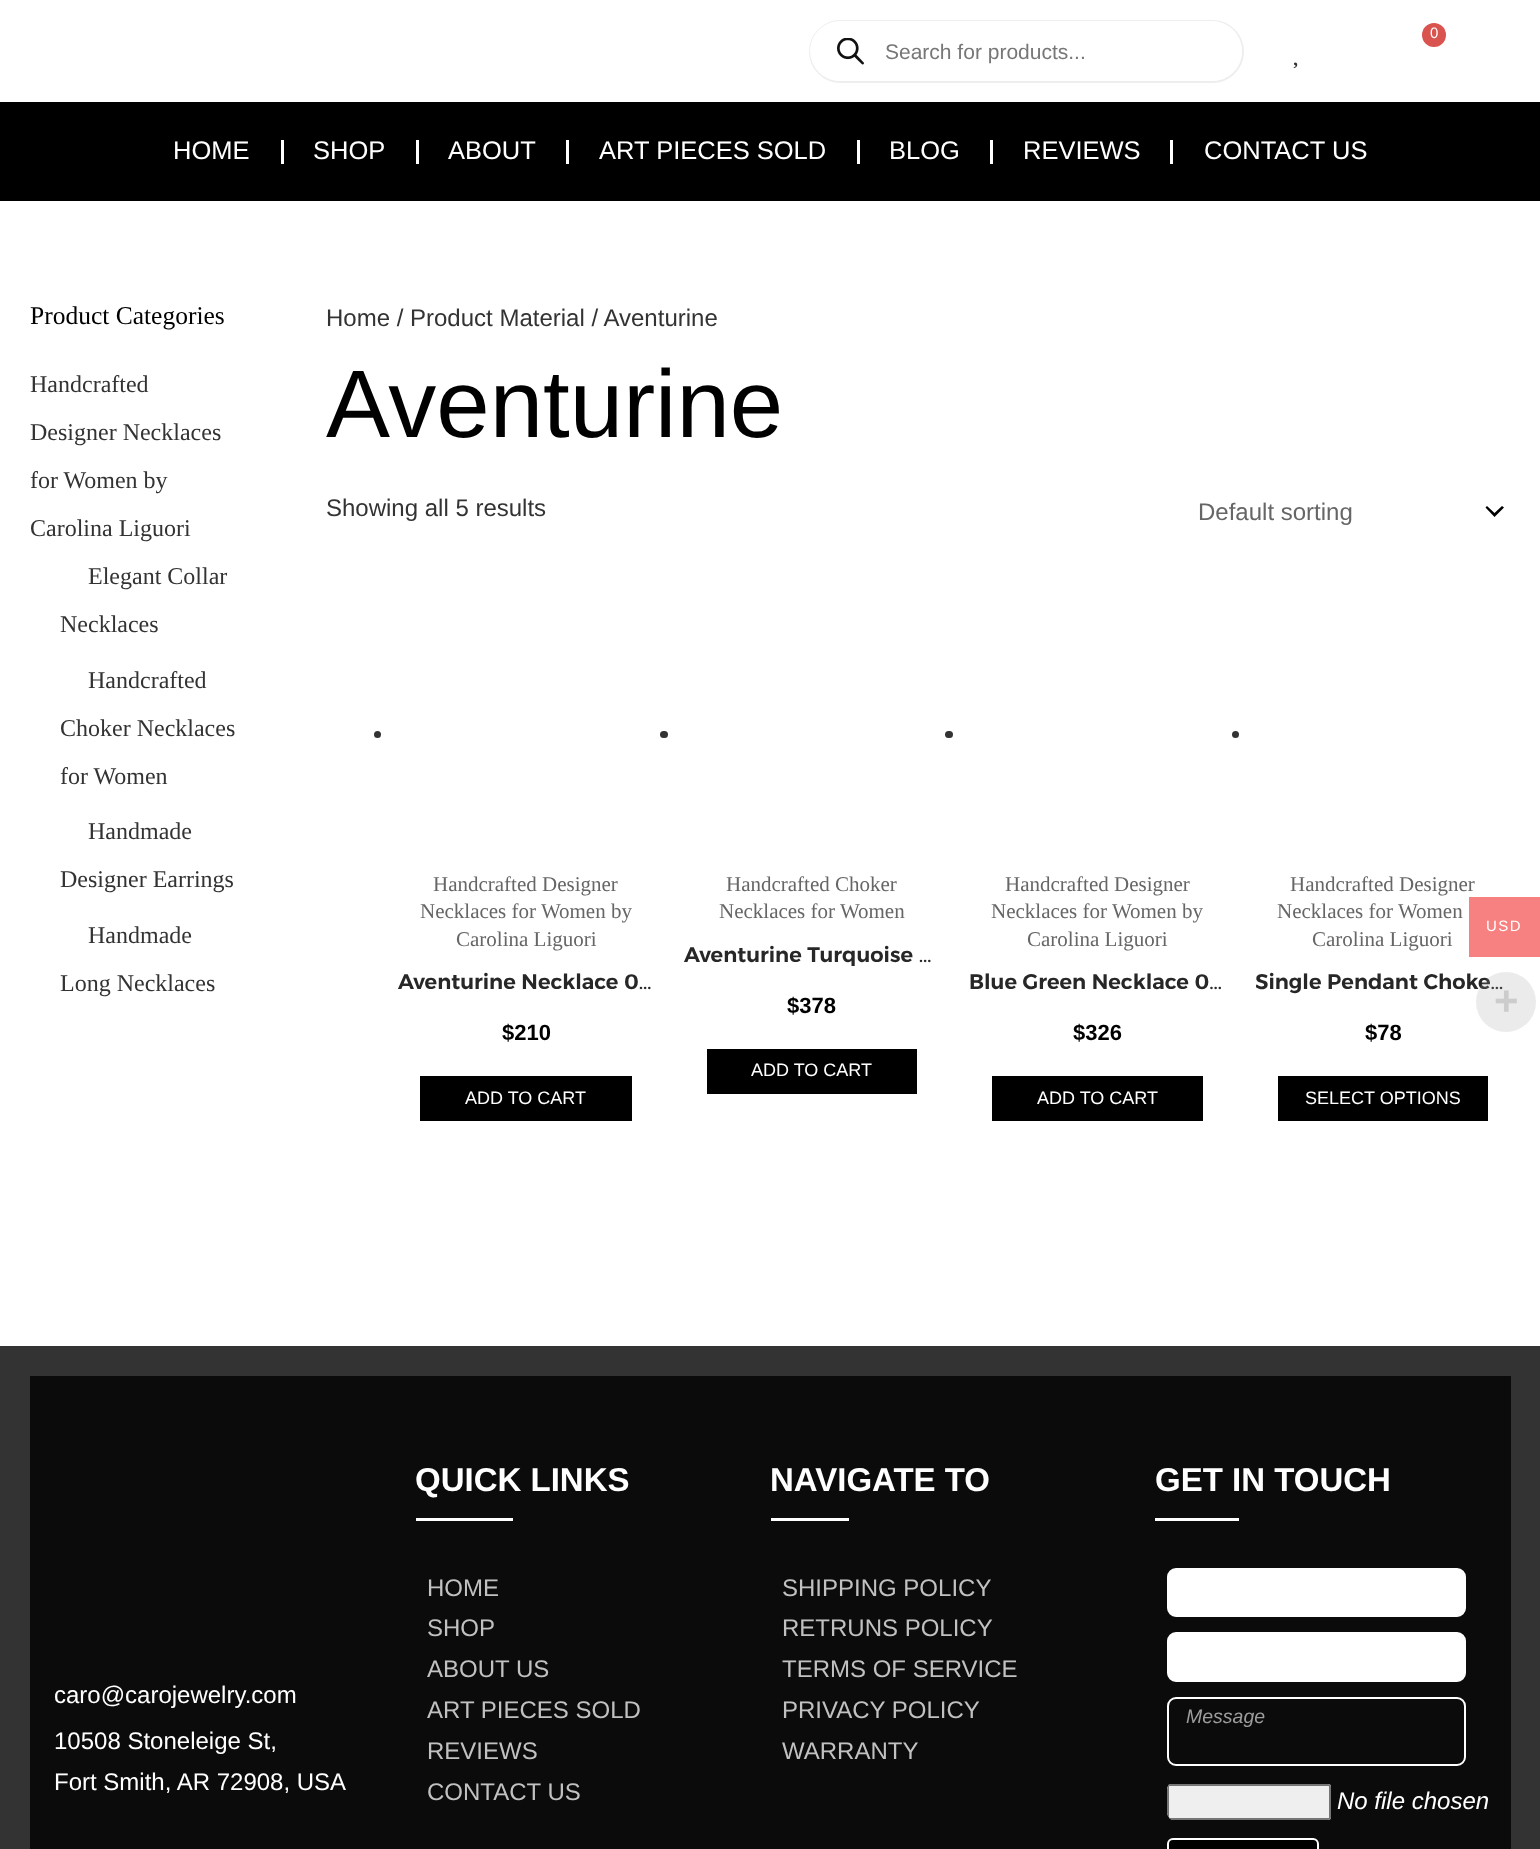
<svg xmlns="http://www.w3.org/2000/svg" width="1540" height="1849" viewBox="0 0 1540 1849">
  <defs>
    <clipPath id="clip1"><rect x="1256" y="965" width="255" height="37"/></clipPath>
    <clipPath id="clip2"><rect x="1167" y="1781" width="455" height="40" rx="9"/></clipPath>
  </defs>
  <rect width="100%" height="100%" fill="rgb(255,255,255)"/>
  <circle cx="1434" cy="35" r="12" fill="rgb(217,83,79)"/>
  <text x="1430" y="38" font-family="Liberation Sans" font-size="15" fill="rgb(255,255,255)">0</text>
  <image x="1293" y="62" width="5" height="7" href="pic1.png"/>
  <rect x="810" y="21" width="433" height="61" rx="30.5" fill="none" stroke="rgb(238,238,238)" stroke-width="2"/>
  <rect x="810" y="21" width="432" height="60" rx="30" fill="rgb(255,255,255)"/>
  <image x="837" y="38" width="27" height="27" href="pic2.png"/>
  <text x="885" y="59" font-family="Liberation Sans" font-size="21" fill="rgb(119,119,119)">Search for products...</text>
  <rect x="0" y="102" width="1540" height="99" fill="rgb(0,0,0)"/>
  <text x="173" y="159" font-family="Liberation Sans" font-size="25.5" fill="rgb(255,255,255)">HOME</text>
  <rect x="281" y="140" width="3" height="24" fill="rgb(255,255,255)"/>
  <text x="313" y="159" font-family="Liberation Sans" font-size="25.5" fill="rgb(255,255,255)">SHOP</text>
  <rect x="416" y="140" width="3" height="24" fill="rgb(255,255,255)"/>
  <text x="448" y="159" font-family="Liberation Sans" font-size="25.5" fill="rgb(255,255,255)">ABOUT</text>
  <rect x="566" y="140" width="3" height="24" fill="rgb(255,255,255)"/>
  <text x="599" y="159" font-family="Liberation Sans" font-size="25.5" fill="rgb(255,255,255)">ART PIECES SOLD</text>
  <rect x="857" y="140" width="3" height="24" fill="rgb(255,255,255)"/>
  <text x="889" y="159" font-family="Liberation Sans" font-size="25.5" fill="rgb(255,255,255)">BLOG</text>
  <rect x="990" y="140" width="3" height="24" fill="rgb(255,255,255)"/>
  <text x="1023" y="159" font-family="Liberation Sans" font-size="25.5" fill="rgb(255,255,255)">REVIEWS</text>
  <rect x="1170" y="140" width="3" height="24" fill="rgb(255,255,255)"/>
  <text x="1204" y="159" font-family="Liberation Sans" font-size="25.5" fill="rgb(255,255,255)">CONTACT US</text>
  <text x="30" y="324" font-family="Liberation Serif" font-size="25.5" fill="rgb(0,0,0)">Product Categories</text>
  <g font-family="Liberation Serif" font-size="24" fill="rgb(51,51,51)">
    <text x="30" y="392">Handcrafted</text>
    <text x="30" y="440">Designer Necklaces</text>
    <text x="30" y="488">for Women by</text>
    <text x="30" y="536">Carolina Liguori</text>
    <text x="88" y="584">Elegant Collar</text>
    <text x="60" y="632">Necklaces</text>
    <text x="88" y="688">Handcrafted</text>
    <text x="60" y="736">Choker Necklaces</text>
    <text x="60" y="784">for Women</text>
    <text x="88" y="839">Handmade</text>
    <text x="60" y="887">Designer Earrings</text>
    <text x="88" y="943">Handmade</text>
    <text x="60" y="991">Long Necklaces</text>
  </g>
  <text x="326" y="326" font-family="Liberation Sans" font-size="24" fill="rgb(51,51,51)">Home / Product Material / Aventurine</text>
  <text x="326" y="437" font-family="Liberation Sans" font-size="96" fill="rgb(0,0,0)">Aventurine</text>
  <text x="326" y="516" font-family="Liberation Sans" font-size="24" fill="rgb(51,51,51)">Showing all 5 results</text>
  <path d="M1485.5 507.5L1494.5 517L1504 507.5L1502 506L1494.5 513L1487 506Z" fill="rgb(0,0,0)"/>
  <text x="1198" y="520" font-family="Liberation Sans" font-size="24" fill="rgb(102,102,102)">Default sorting</text>
  <circle cx="377.5" cy="734.5" r="3.5" fill="rgb(51,51,51)"/>
  <g font-family="Liberation Serif" font-size="21" fill="rgb(102,102,102)">
    <text x="433" y="891">Handcrafted Designer</text>
    <text x="420" y="918">Necklaces for Women by</text>
    <text x="456" y="946">Carolina Liguori</text>
  </g>
  <text x="398" y="989" font-family="Alexandria" font-size="21" font-weight="600" fill="rgb(39,39,39)">Aventurine Necklace 0…</text>
  <text x="502" y="1040" font-family="Liberation Sans" font-size="22" font-weight="bold" fill="rgb(0,0,0)">$210</text>
  <rect x="420" y="1076" width="212" height="45" fill="rgb(0,0,0)"/>
  <text x="465" y="1104" font-family="Liberation Sans" font-size="18" fill="rgb(255,255,255)">ADD TO CART</text>
  <rect x="660" y="731" width="8" height="7" rx="3.5" fill="rgb(51,51,51)"/>
  <g font-family="Liberation Serif" font-size="21" fill="rgb(102,102,102)">
    <text x="726" y="891">Handcrafted Choker</text>
    <text x="719" y="918">Necklaces for Women</text>
  </g>
  <text x="684" y="962" font-family="Alexandria" font-size="21" font-weight="600" fill="rgb(39,39,39)">Aventurine Turquoise …</text>
  <text x="787" y="1013" font-family="Liberation Sans" font-size="22" font-weight="bold" fill="rgb(0,0,0)">$378</text>
  <rect x="707" y="1049" width="210" height="45" fill="rgb(0,0,0)"/>
  <text x="751" y="1076" font-family="Liberation Sans" font-size="18" fill="rgb(255,255,255)">ADD TO CART</text>
  <rect x="945" y="731" width="8" height="7" rx="3.5" fill="rgb(51,51,51)"/>
  <g font-family="Liberation Serif" font-size="21" fill="rgb(102,102,102)">
    <text x="1005" y="891">Handcrafted Designer</text>
    <text x="991" y="918">Necklaces for Women by</text>
    <text x="1027" y="946">Carolina Liguori</text>
  </g>
  <text x="969" y="989" font-family="Alexandria" font-size="21" font-weight="600" fill="rgb(39,39,39)">Blue Green Necklace 0…</text>
  <text x="1073" y="1040" font-family="Liberation Sans" font-size="22" font-weight="bold" fill="rgb(0,0,0)">$326</text>
  <rect x="992" y="1076" width="211" height="45" fill="rgb(0,0,0)"/>
  <text x="1037" y="1104" font-family="Liberation Sans" font-size="18" fill="rgb(255,255,255)">ADD TO CART</text>
  <circle cx="1235.5" cy="734.5" r="3.5" fill="rgb(51,51,51)"/>
  <g font-family="Liberation Serif" font-size="21" fill="rgb(102,102,102)">
    <text x="1290" y="891">Handcrafted Designer</text>
    <text x="1277" y="918">Necklaces for Women</text>
    <text x="1312" y="946">Carolina Liguori</text>
  </g>
  <g clip-path="url(#clip1)">
    <text x="1255" y="989" font-family="Alexandria" font-size="21" font-weight="600" fill="rgb(39,39,39)">Single Pendant Choke…</text>
  </g>
  <text x="1365" y="1040" font-family="Liberation Sans" font-size="22" font-weight="bold" fill="rgb(0,0,0)">$78</text>
  <rect x="1278" y="1076" width="210" height="45" fill="rgb(0,0,0)"/>
  <text x="1305" y="1104" font-family="Liberation Sans" font-size="18" fill="rgb(255,255,255)">SELECT OPTIONS</text>
  <rect x="0" y="1346" width="1540" height="503" fill="rgb(51,51,51)"/>
  <rect x="30" y="1376" width="1481" height="473" fill="rgb(11,11,11)"/>
  <g font-family="Liberation Sans" font-size="24" fill="rgb(255,255,255)">
    <text>
      <tspan x="54" y="1703">caro@carojewelry.com</tspan>
      <tspan x="54" y="1749">10508 Stoneleige St,</tspan>
      <tspan x="54" y="1790">Fort Smith, AR 72908, USA</tspan>
    </text>
  </g>
  <text x="415" y="1491" font-family="Liberation Sans" font-size="33" font-weight="bold" fill="rgb(255,255,255)">QUICK LINKS</text>
  <rect x="416" y="1518" width="97" height="3" fill="rgb(255,255,255)"/>
  <g font-family="Liberation Sans" font-size="24" fill="rgb(193,193,193)">
    <text>
      <tspan x="427" y="1596">HOME</tspan>
      <tspan x="427" y="1636">SHOP</tspan>
      <tspan x="427" y="1677">ABOUT US</tspan>
      <tspan x="427" y="1718">ART PIECES SOLD</tspan>
      <tspan x="427" y="1759">REVIEWS</tspan>
      <tspan x="427" y="1800">CONTACT US</tspan>
    </text>
  </g>
  <text x="770" y="1491" font-family="Liberation Sans" font-size="33" font-weight="bold" fill="rgb(255,255,255)">NAVIGATE TO</text>
  <rect x="771" y="1518" width="78" height="3" fill="rgb(255,255,255)"/>
  <g font-family="Liberation Sans" font-size="24" fill="rgb(193,193,193)">
    <text>
      <tspan x="782" y="1596">SHIPPING POLICY</tspan>
      <tspan x="782" y="1636">RETRUNS POLICY</tspan>
      <tspan x="782" y="1677">TERMS OF SERVICE</tspan>
      <tspan x="782" y="1718">PRIVACY POLICY</tspan>
      <tspan x="782" y="1759">WARRANTY</tspan>
    </text>
  </g>
  <text x="1155" y="1491" font-family="Liberation Sans" font-size="33" font-weight="bold" fill="rgb(255,255,255)">GET IN TOUCH</text>
  <rect x="1155" y="1518" width="84" height="3" fill="rgb(255,255,255)"/>
  <rect x="1168" y="1569" width="297" height="47" rx="8" fill="rgb(255,255,255)" stroke="rgb(255,255,255)" stroke-width="2"/>
  <rect x="1168" y="1633" width="297" height="48" rx="8" fill="rgb(255,255,255)" stroke="rgb(255,255,255)" stroke-width="2"/>
  <rect x="1168" y="1698" width="297" height="67" rx="8" fill="none" stroke="rgb(255,255,255)" stroke-width="2"/>
  <text x="1186" y="1723" font-family="Liberation Sans" font-size="19.5" font-style="italic" fill="rgb(157,157,157)">Message</text>
  <g clip-path="url(#clip2)">
    <rect x="1167" y="1784" width="164" height="36" rx="3" fill="rgb(239,239,239)"/>
  </g>
  <path d="M1170 1784H1169C1168 1786 1167 1788 1167 1790V1812C1167 1815 1169 1819 1172 1820H1328C1330 1820 1331 1819 1331 1817V1787C1331 1785 1330 1784 1328 1784ZM1170 1786C1169 1786 1169 1786 1169 1787V1817C1169 1818 1169 1818 1170 1818H1328C1329 1818 1329 1818 1329 1817V1787C1329 1786 1329 1786 1328 1786Z" fill="rgb(118,118,118)" fill-rule="evenodd"/>
  <text x="1337" y="1809" font-family="Liberation Sans" font-size="24" font-style="italic" fill="rgb(255,255,255)">No file chosen</text>
  <rect x="1168" y="1839" width="150" height="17" rx="5" fill="rgb(0,0,0)" stroke="rgb(255,255,255)" stroke-width="2"/>
  <rect x="1469" y="897" width="71" height="60" fill="rgb(247,128,128)"/>
  <text x="1486" y="931" font-family="Liberation Sans" font-size="15" letter-spacing="1.5" fill="rgb(255,255,255)">USD</text>
  <circle cx="1506" cy="1002" r="30" fill="rgba(153,153,153,0.2)"/>
  <text x="1494" y="1015" font-family="Liberation Sans" font-size="42" font-weight="bold" fill="rgb(204,204,204)">+</text>
</svg>
